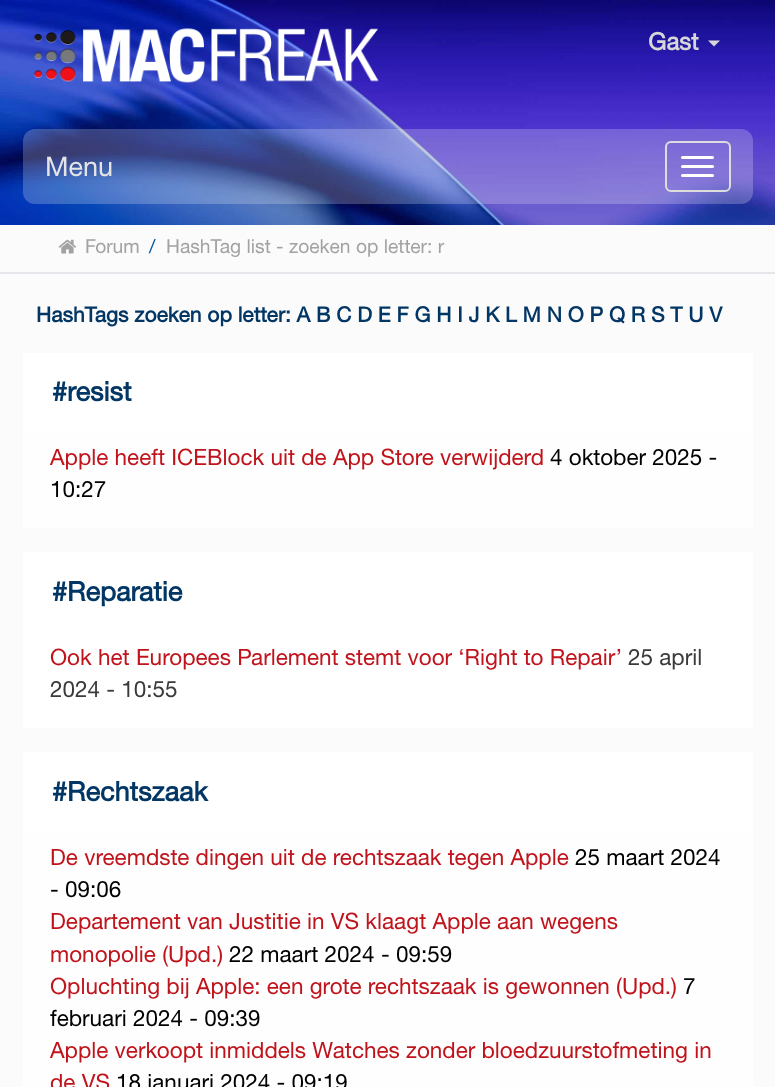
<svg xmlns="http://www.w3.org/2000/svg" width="775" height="1087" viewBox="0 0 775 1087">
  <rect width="100%" height="100%" fill="rgb(251,251,251)"/>
  <image x="0" y="0" width="775" height="225" href="pic1.png"/>
  <image x="33" y="28" width="346" height="55" href="pic2.png"/>
  <text x="648" y="50" font-family="Helvetica" font-size="24" font-weight="bold" fill="rgb(215,215,215)">Gast</text>
  <path d="M708 40.5H720L714 46.5Z" fill="rgb(215,215,215)"/>
  <rect x="23" y="129" width="730" height="75" rx="12" fill="rgba(255,255,255,0.22)"/>
  <text x="45" y="176" font-family="Helvetica" font-size="27" fill="rgb(229,229,229)">Menu</text>
  <rect x="666" y="142" width="64" height="49" rx="5" fill="none" stroke="rgb(221,221,221)" stroke-width="2"/>
  <rect x="681" y="156" width="33" height="3" rx="1.5" fill="rgb(255,255,255)"/>
  <rect x="681" y="165" width="33" height="3" rx="1.5" fill="rgb(255,255,255)"/>
  <rect x="681" y="174" width="33" height="3" rx="1.5" fill="rgb(255,255,255)"/>
  <rect x="0" y="272" width="775" height="2" fill="rgb(228,230,233)"/>
  <image x="58" y="239" width="18" height="15" href="pic3.png"/>
  <text x="85" y="253" font-family="Helvetica" font-size="19.25" fill="rgb(162,162,162)">Forum</text>
  <text x="149" y="253" font-family="Helvetica" font-size="19.25" fill="rgb(3,85,158)">/</text>
  <text x="166" y="253" font-family="Helvetica" font-size="19.25" fill="rgb(162,162,162)">HashTag list - zoeken op letter: r</text>
  <text x="36" y="322" font-family="Helvetica" font-size="21" font-weight="bold" fill="rgb(2,54,100)">HashTags zoeken op letter: A B C D E F G H I J K L M N O P Q R S T U V</text>
  <rect x="23" y="353" width="730" height="78" fill="rgb(255,255,255)"/>
  <text x="52" y="401" font-family="Helvetica" font-size="27" font-weight="bold" fill="rgb(2,54,100)">#resist</text>
  <rect x="23" y="431" width="730" height="97" fill="rgb(254,254,254)"/>
  <text x="50" y="465" font-family="Helvetica" font-size="22.5" fill="rgb(192,20,28)">Apple heeft ICEBlock uit de App Store verwijderd</text>
  <g font-family="Helvetica" font-size="22.5" fill="rgb(0,0,0)">
    <text x="550" y="465">4 oktober 2025 -</text>
    <text x="50" y="497">10:27</text>
  </g>
  <rect x="23" y="552" width="730" height="176" fill="rgb(255,255,255)"/>
  <text x="52" y="601" font-family="Helvetica" font-size="27" font-weight="bold" fill="rgb(2,54,100)">#Reparatie</text>
  <text x="50" y="665" font-family="Helvetica" font-size="22.5" fill="rgb(192,20,28)">Ook het Europees Parlement stemt voor ‘Right to Repair’</text>
  <g font-family="Helvetica" font-size="22.5" fill="rgb(58,58,58)">
    <text x="628" y="665">25 april</text>
    <text x="50" y="697">2024 - 10:55</text>
  </g>
  <rect x="23" y="752" width="730" height="78" fill="rgb(255,255,255)"/>
  <text x="52" y="801" font-family="Helvetica" font-size="27" font-weight="bold" fill="rgb(2,54,100)">#Rechtszaak</text>
  <rect x="23" y="830" width="730" height="257" fill="rgb(254,254,254)"/>
  <text x="50" y="865" font-family="Helvetica" font-size="22.5" fill="rgb(192,20,28)">De vreemdste dingen uit de rechtszaak tegen Apple</text>
  <g font-family="Helvetica" font-size="22.5" fill="rgb(0,0,0)">
    <text x="575" y="865">25 maart 2024</text>
    <text x="50" y="897">- 09:06</text>
  </g>
  <g font-family="Helvetica" font-size="22.5" fill="rgb(192,20,28)">
    <text>
      <tspan x="50" y="929">Departement van Justitie in VS klaagt Apple aan wegens</tspan>
      <tspan x="50" y="962">monopolie (Upd.)</tspan>
    </text>
  </g>
  <text x="229" y="962" font-family="Helvetica" font-size="22.5" fill="rgb(0,0,0)">22 maart 2024 - 09:59</text>
  <text x="50" y="994" font-family="Helvetica" font-size="22.5" fill="rgb(192,20,28)">Opluchting bij Apple: een grote rechtszaak is gewonnen (Upd.)</text>
  <g font-family="Helvetica" font-size="22.5" fill="rgb(0,0,0)">
    <text x="683" y="994">7</text>
    <text x="50" y="1026">februari 2024 - 09:39</text>
  </g>
  <g font-family="Helvetica" font-size="22.5" fill="rgb(192,20,28)">
    <text>
      <tspan x="50" y="1058">Apple verkoopt inmiddels Watches zonder bloedzuurstofmeting in</tspan>
      <tspan x="50" y="1090">de VS</tspan>
    </text>
  </g>
  <text x="116" y="1090" font-family="Helvetica" font-size="22.5" fill="rgb(0,0,0)">18 januari 2024 - 09:19</text>
</svg>
